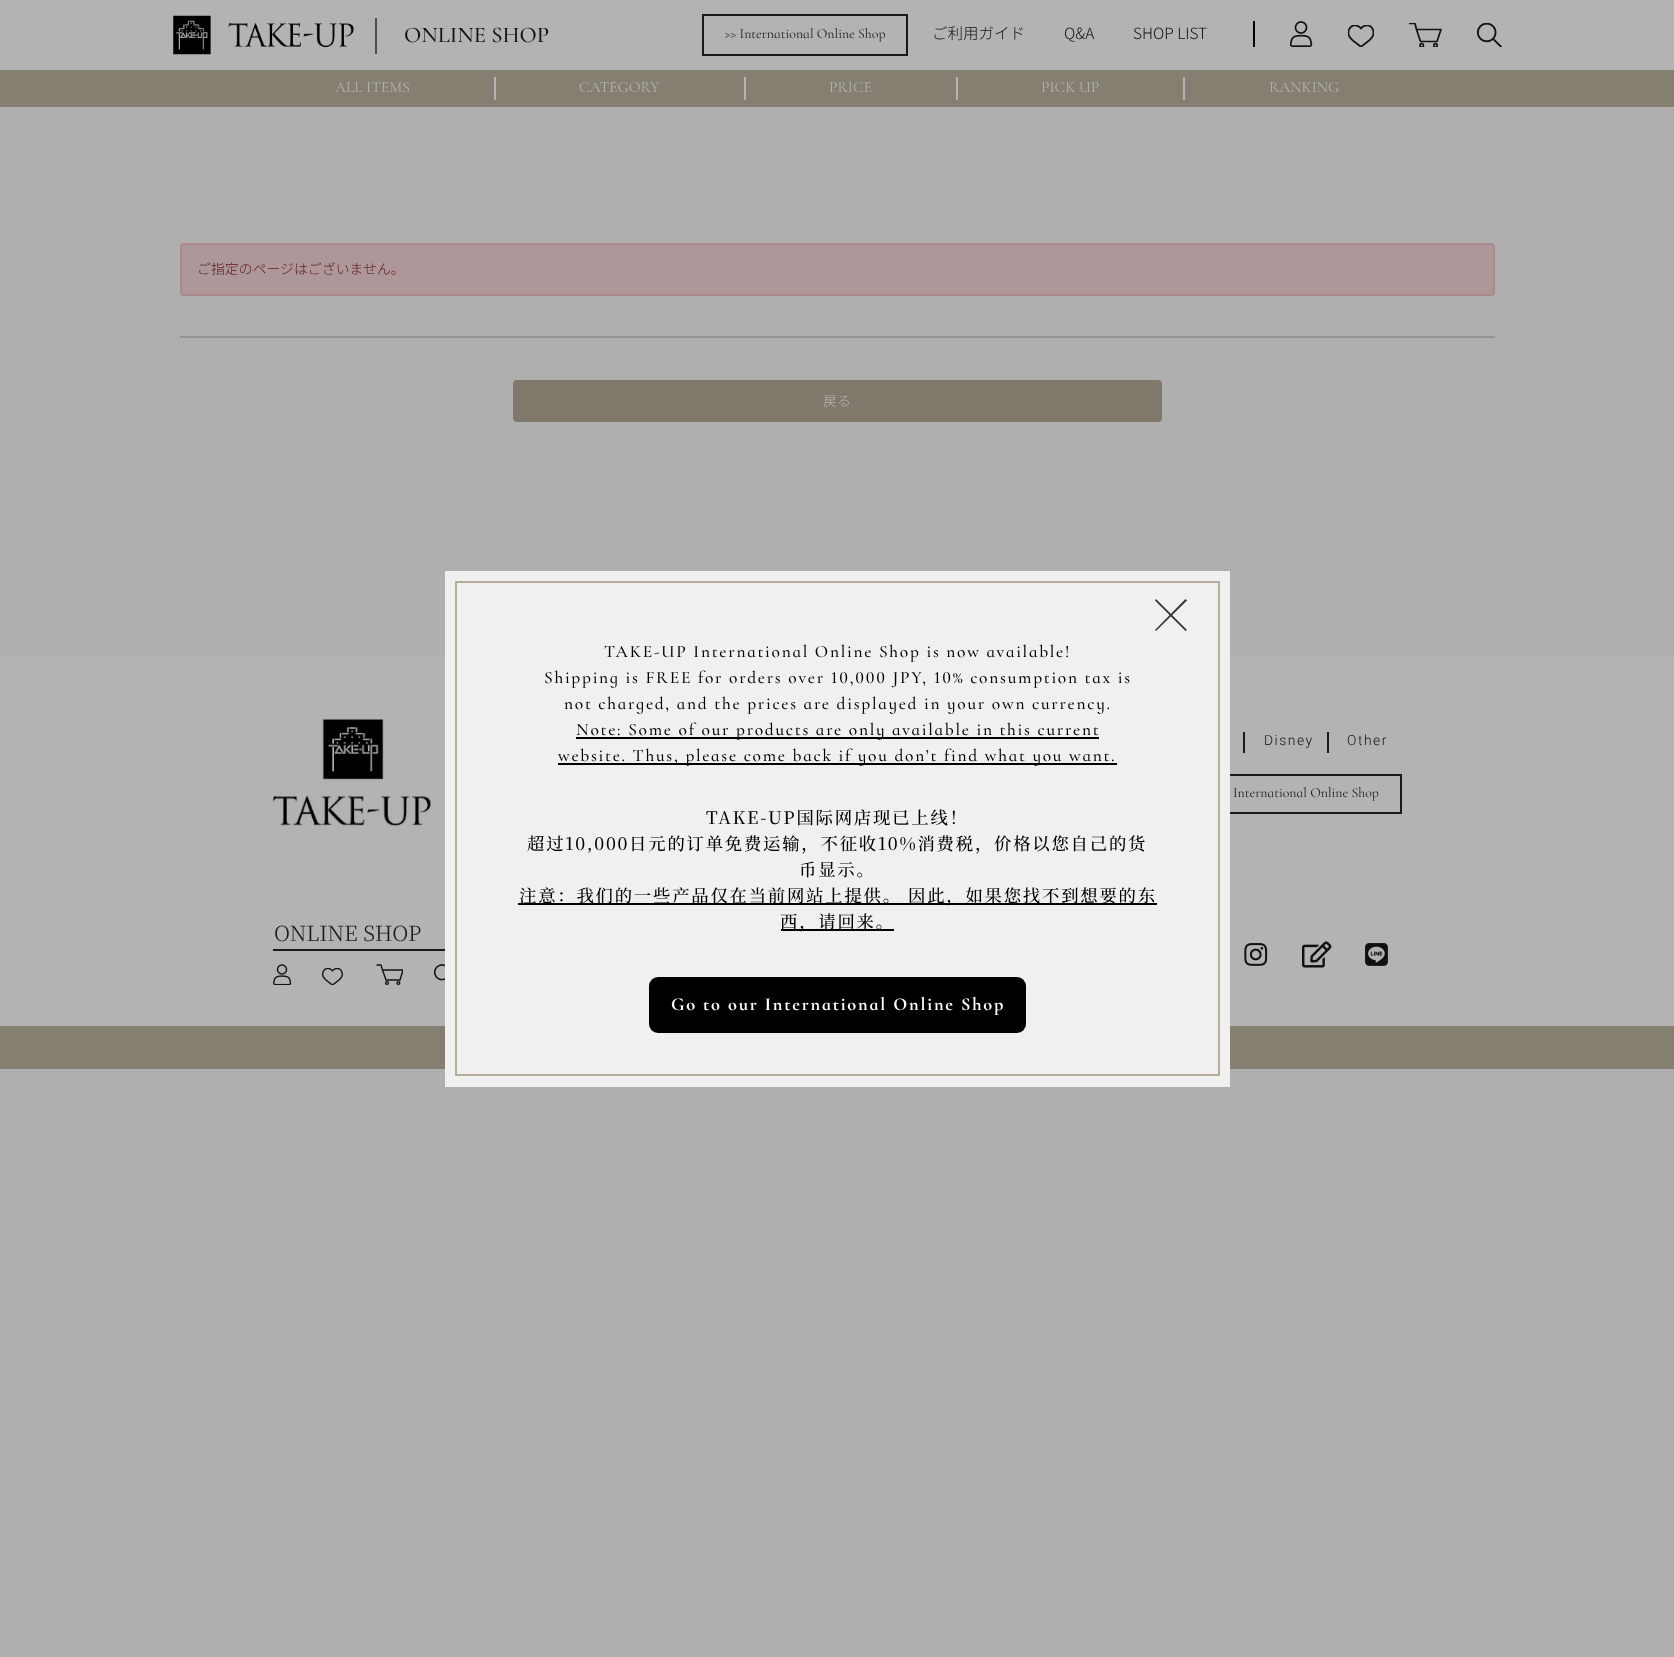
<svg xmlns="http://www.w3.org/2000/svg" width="1674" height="1657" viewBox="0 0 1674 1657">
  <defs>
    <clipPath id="clip1"><rect x="1409" y="23" width="33" height="24"/></clipPath>
    <clipPath id="clip2"><rect x="376" y="964" width="27" height="21"/></clipPath>
  </defs>
  <rect width="100%" height="100%" fill="rgb(175,175,175)"/>
  <rect x="0" y="0" width="1674" height="70" fill="rgb(179,179,179)"/>
  <image x="173" y="15" width="181" height="40" href="pic1.png"/>
  <rect x="375" y="18" width="2" height="36" fill="rgb(78,78,78)"/>
  <text x="404" y="42" font-family="Cormorant Infant" font-size="22.5" font-weight="500" fill="rgb(18,17,17)">ONLINE SHOP</text>
  <rect x="703" y="15" width="204" height="40" fill="none" stroke="rgb(23,26,29)" stroke-width="2"/>
  <text x="725" y="38" font-family="Cormorant Infant" font-size="13.9" fill="rgb(23,26,29)">&gt;&gt; International Online Shop</text>
  <g font-family="Noto Sans JP" font-size="15.5" font-weight="300" fill="rgb(18,17,17)">
    <text x="932" y="39">ご利用ガイド</text>
    <text x="1064" y="39">Q&amp;A</text>
    <text x="1133" y="39">SHOP LIST</text>
  </g>
  <rect x="1253" y="21" width="2" height="26" fill="rgb(0,0,0)"/>
  <image x="1290" y="21" width="23" height="26" href="pic2.png"/>
  <image x="1348" y="25" width="26" height="22" href="pic3.png"/>
  <g clip-path="url(#clip1)">
    <path d="M1409.5 23.5H1415L1416.5 29.5H1441L1437 41.5H1420.5L1416.5 29.5" fill="none" stroke="rgb(18,18,18)" stroke-width="1.7" stroke-linecap="round" stroke-linejoin="round"/>
    <circle cx="1421.7" cy="45.4" r="1.7" fill="none" stroke="rgb(18,18,18)" stroke-width="1.7"/>
    <circle cx="1435.5" cy="45.4" r="1.7" fill="none" stroke="rgb(18,18,18)" stroke-width="1.7"/>
  </g>
  <image x="1477" y="23" width="25" height="24" href="pic4.png"/>
  <rect x="0" y="70" width="1674" height="37" fill="rgb(133,127,114)"/>
  <rect x="494" y="77" width="2" height="23" fill="rgb(179,179,179)"/>
  <text x="335" y="92" font-family="Cormorant Infant" font-size="15.5" fill="rgb(179,179,179)">ALL ITEMS</text>
  <rect x="744" y="77" width="2" height="23" fill="rgb(179,179,179)"/>
  <text x="579" y="92" font-family="Cormorant Infant" font-size="15.5" fill="rgb(179,179,179)">CATEGORY</text>
  <rect x="956" y="77" width="2" height="23" fill="rgb(179,179,179)"/>
  <text x="829" y="92" font-family="Cormorant Infant" font-size="15.5" fill="rgb(179,179,179)">PRICE</text>
  <rect x="1183" y="77" width="2" height="23" fill="rgb(179,179,179)"/>
  <g font-family="Cormorant Infant" font-size="15.5" fill="rgb(179,179,179)">
    <text x="1041" y="92">PICK UP</text>
    <text x="1269" y="92">RANKING</text>
  </g>
  <rect x="181" y="244" width="1313" height="51" rx="3" fill="rgb(174,151,153)" stroke="rgb(172,136,139)" stroke-width="2"/>
  <text x="197" y="274" font-family="Noto Sans JP" font-size="13.9" font-weight="300" fill="rgb(92,22,29)">ご指定のページはございません。</text>
  <rect x="180" y="336" width="1315" height="2" fill="rgb(151,148,141)"/>
  <rect x="514" y="381" width="647" height="40" rx="3" fill="rgb(128,120,106)" stroke="rgb(128,120,106)" stroke-width="2"/>
  <text x="823" y="406" font-family="Noto Sans JP" font-size="13.9" font-weight="300" fill="rgb(179,179,179)">戻る</text>
  <rect x="0" y="656" width="1674" height="370" fill="rgb(179,179,179)"/>
  <rect x="1196" y="775" width="205" height="38" fill="none" stroke="rgb(23,26,29)" stroke-width="2"/>
  <rect x="0" y="1026" width="1674" height="43" fill="rgb(133,127,114)"/>
  <rect x="445" y="571" width="785" height="516" fill="rgb(240,240,240)"/>
  <rect x="456" y="582" width="763" height="493" fill="none" stroke="rgb(183,172,152)" stroke-width="2"/>
  <path d="M1156 599L1187 630L1185.5 631L1155 600.5Z" fill="rgb(51,51,51)"/>
  <path d="M1155 630L1185.5 599L1187 600.5L1156 631Z" fill="rgb(51,51,51)"/>
  <g font-family="Cormorant Infant" font-size="17.4" font-weight="500" letter-spacing="1.75" fill="rgb(0,0,0)">
    <text x="604" y="657">TAKE-UP International Online Shop is now available!</text>
    <text x="544" y="683">Shipping is FREE for orders over 10,000 JPY, 10% consumption tax is</text>
    <text x="564" y="709">not charged, and the prices are displayed in your own currency.</text>
  </g>
  <rect x="576" y="737" width="523" height="2" fill="rgb(0,0,0)"/>
  <text x="576" y="735" font-family="Cormorant Infant" font-size="17.4" font-weight="500" letter-spacing="1.75" fill="rgb(0,0,0)">Note: Some of our products are only available in this current</text>
  <rect x="558" y="763" width="559" height="2" fill="rgb(0,0,0)"/>
  <text x="558" y="761" font-family="Cormorant Infant" font-size="17.4" font-weight="500" letter-spacing="1.75" fill="rgb(0,0,0)">website. Thus, please come back if you don’t find what you want.</text>
  <g font-family="Noto Serif SC" font-size="17.4" font-weight="200" letter-spacing="1.75" fill="rgb(0,0,0)">
    <text x="706" y="824">TAKE-UP国际网店现已上线！</text>
    <text x="527" y="850">超过10,000日元的订单免费运输，不征收10%消费税，价格以您自己的货</text>
    <text x="799" y="876">币显示。</text>
  </g>
  <rect x="518" y="903" width="639" height="2" fill="rgb(0,0,0)"/>
  <text x="519" y="902" font-family="Noto Serif SC" font-size="17.4" font-weight="200" letter-spacing="1.75" fill="rgb(0,0,0)">注意：我们的一些产品仅在当前网站上提供。 因此，如果您找不到想要的东</text>
  <rect x="781" y="929" width="113" height="2" fill="rgb(0,0,0)"/>
  <text x="780" y="928" font-family="Noto Serif SC" font-size="17.4" font-weight="200" letter-spacing="1.75" fill="rgb(0,0,0)">西，请回来。</text>
  <rect x="649" y="977" width="377" height="56" rx="9" fill="rgb(0,0,0)"/>
  <text x="671" y="1010" font-family="Cormorant Infant" font-size="18.25" font-weight="bold" letter-spacing="1.85" fill="rgb(255,255,255)">Go to our International Online Shop</text>
  <image x="273" y="719" width="158" height="107" href="pic5.png"/>
  <rect x="1243" y="732" width="2" height="21" fill="rgb(23,26,29)"/>
  <rect x="1327" y="732" width="2" height="21" fill="rgb(23,26,29)"/>
  <g font-family="Roboto" font-size="13.9" font-weight="300" letter-spacing="1.5" fill="rgb(18,17,17)">
    <text x="1264" y="745">Disney</text>
    <text x="1347" y="745">Other</text>
  </g>
  <text x="1233" y="797" font-family="Cormorant Infant" font-size="13.9" fill="rgb(23,26,29)">International Online Shop</text>
  <text x="274" y="941" font-family="Noto Serif JP" font-size="21" font-weight="300" fill="rgb(23,26,29)">ONLINE SHOP</text>
  <rect x="273" y="949" width="172" height="2" fill="rgb(23,26,29)"/>
  <image x="273" y="964" width="19" height="21" href="pic6.png"/>
  <image x="322" y="968" width="21" height="17" href="pic7.png"/>
  <g clip-path="url(#clip2)">
    <path d="M377 965H381L382.5 970H403L400 980H386L382.5 970" fill="none" stroke="rgb(18,18,18)" stroke-width="1.4" stroke-linecap="round" stroke-linejoin="round"/>
  </g>
  <circle cx="387" cy="983" r="1.4" fill="none" stroke="rgb(18,18,18)" stroke-width="1.4"/>
  <circle cx="398.4" cy="983" r="1.4" fill="none" stroke="rgb(18,18,18)" stroke-width="1.4"/>
  <image x="434" y="964" width="11" height="17" href="pic8.png"/>
  <image x="1244" y="943" width="24" height="23" href="pic9.png"/>
  <image x="1302" y="941" width="30" height="27" href="pic10.png"/>
  <image x="1365" y="943" width="23" height="23" href="pic11.png"/>
</svg>
